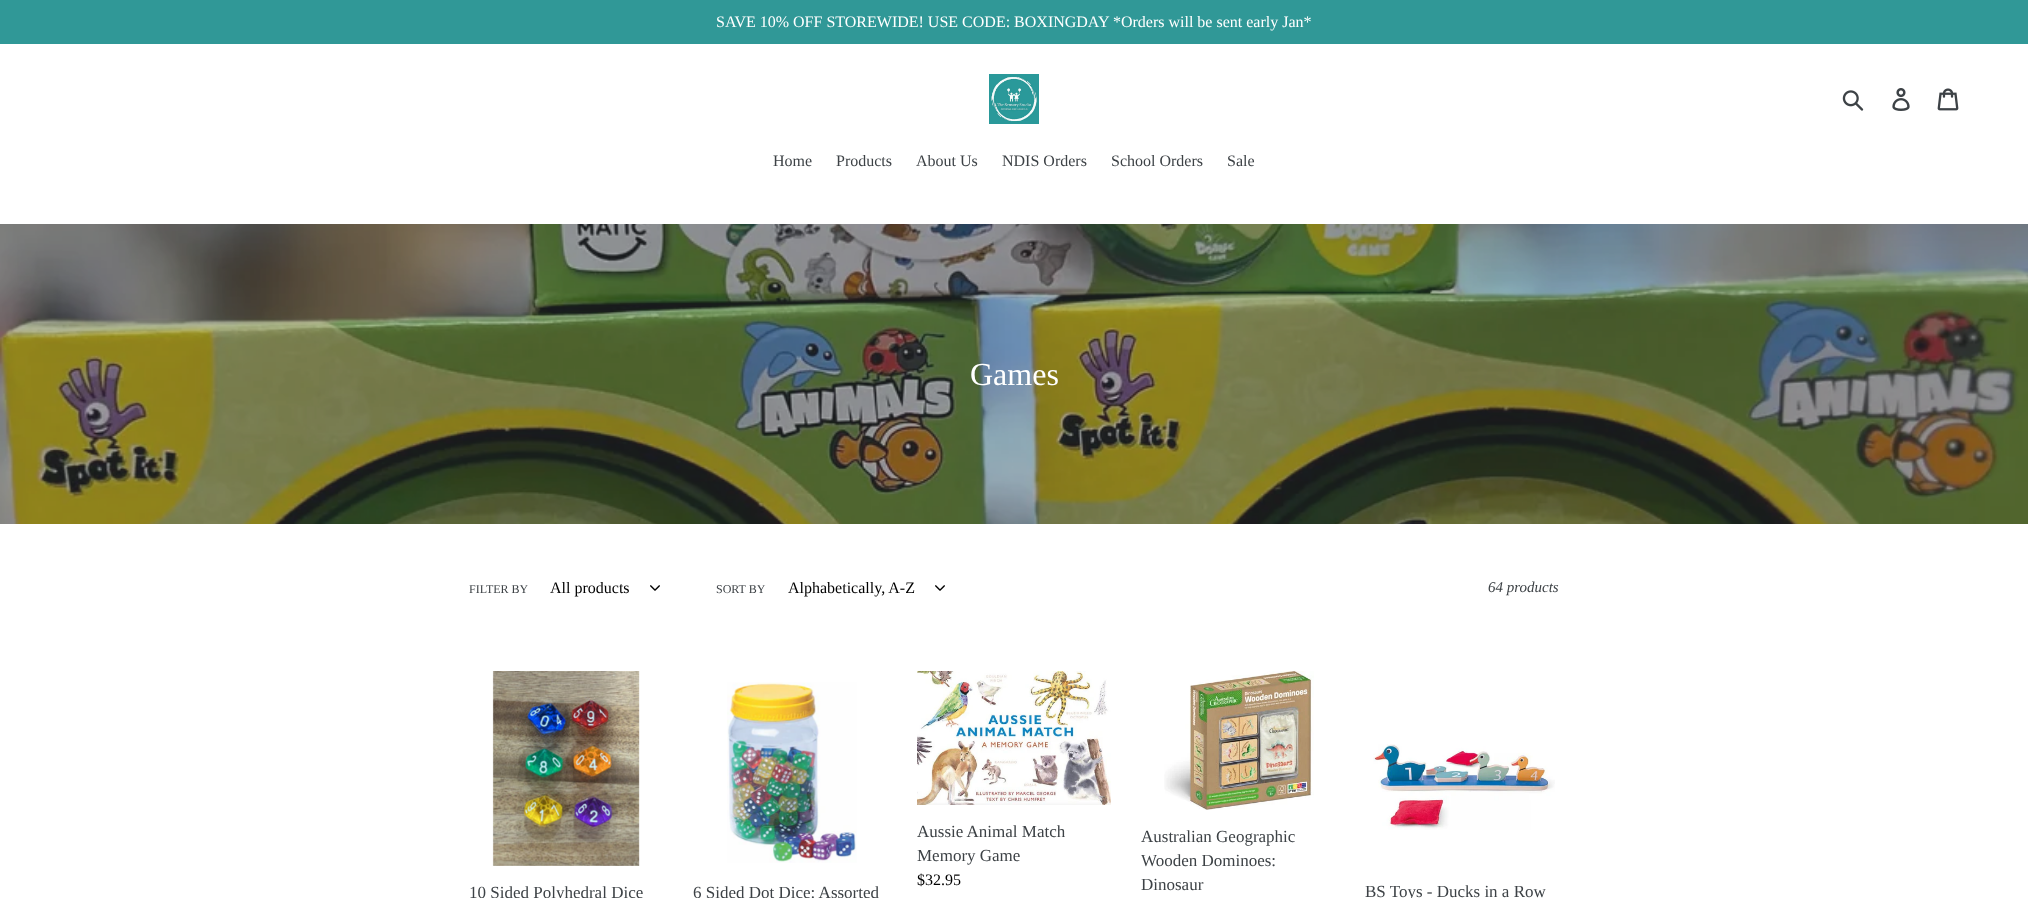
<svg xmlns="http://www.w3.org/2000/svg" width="2028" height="898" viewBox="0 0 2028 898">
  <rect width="100%" height="100%" fill="rgb(255,255,255)"/>
  <rect x="0" y="0" width="2028" height="44" fill="rgb(48,152,151)"/>
  <text x="716" y="27" font-family="Liberation Serif" font-size="16" fill="rgb(255,255,255)">SAVE 10% OFF STOREWIDE! USE CODE: BOXINGDAY *Orders will be sent early Jan*</text>
  <image x="989" y="74" width="50" height="50" href="pic1.png"/>
  <image x="1842" y="90" width="22" height="21" href="pic2.png"/>
  <image x="1892" y="88" width="18" height="23" href="pic3.png"/>
  <image x="1937" y="88" width="22" height="23" href="pic4.png"/>
  <g font-family="Liberation Serif" font-size="16" fill="rgb(61,66,70)">
    <text x="773" y="166">Home</text>
    <text x="836" y="166">Products</text>
    <text x="916" y="166">About Us</text>
    <text x="1002" y="166">NDIS Orders</text>
    <text x="1111" y="166">School Orders</text>
    <text x="1227" y="166">Sale</text>
  </g>
  <image x="0" y="224" width="2028" height="300" href="pic5.png"/>
  <text x="970" y="385" font-family="Liberation Serif" font-size="32" fill="rgb(255,255,255)">Games</text>
  <text x="469" y="593" font-family="Liberation Serif" font-size="12" fill="rgb(61,66,70)">FILTER BY</text>
  <text x="550" y="593" font-family="Liberation Serif" font-size="16" fill="rgb(0,0,0)">All products</text>
  <image x="650" y="585" width="10" height="6" href="pic6.png"/>
  <text x="716" y="593" font-family="Liberation Serif" font-size="12" fill="rgb(61,66,70)">SORT BY</text>
  <text x="788" y="593" font-family="Liberation Serif" font-size="16" fill="rgb(0,0,0)">Alphabetically, A-Z</text>
  <image x="935" y="585" width="10" height="6" href="pic6.png"/>
  <text x="1488" y="592" font-family="Liberation Serif" font-size="15" font-style="italic" fill="rgb(61,66,70)">64 products</text>
  <image x="492" y="671" width="148" height="195" href="pic7.png"/>
  <text x="469" y="898" font-family="Liberation Serif" font-size="17" fill="rgb(61,66,70)">10 Sided Polyhedral Dice</text>
  <image x="727" y="682" width="130" height="181" href="pic8.png"/>
  <text x="693" y="898" font-family="Liberation Serif" font-size="17" fill="rgb(61,66,70)">6 Sided Dot Dice: Assorted</text>
  <image x="917" y="671" width="194" height="134" href="pic9.png"/>
  <g font-family="Liberation Serif" font-size="17" fill="rgb(61,66,70)">
    <text>
      <tspan x="917" y="837">Aussie Animal Match</tspan>
      <tspan x="917" y="861">Memory Game</tspan>
    </text>
  </g>
  <text x="917" y="885" font-family="Liberation Serif" font-size="16" fill="rgb(0,0,0)">$32.95</text>
  <image x="1164" y="671" width="150" height="139" href="pic10.png"/>
  <g font-family="Liberation Serif" font-size="17" fill="rgb(61,66,70)">
    <text>
      <tspan x="1141" y="842">Australian Geographic</tspan>
      <tspan x="1141" y="866">Wooden Dominoes:</tspan>
      <tspan x="1141" y="890">Dinosaur</tspan>
    </text>
  </g>
  <image x="1373" y="744" width="182" height="86" href="pic11.png"/>
  <text x="1365" y="897" font-family="Liberation Serif" font-size="17" fill="rgb(61,66,70)">BS Toys - Ducks in a Row</text>
</svg>
